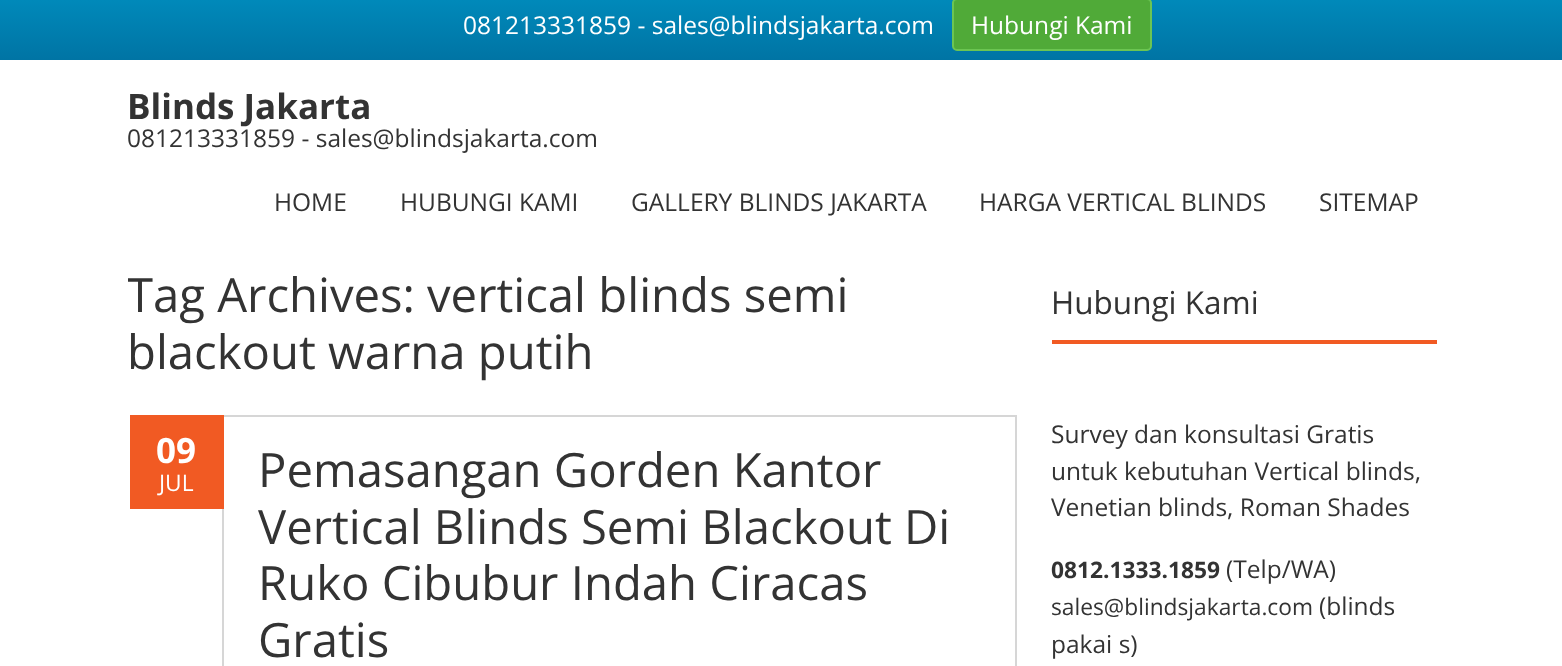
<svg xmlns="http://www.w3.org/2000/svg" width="1562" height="666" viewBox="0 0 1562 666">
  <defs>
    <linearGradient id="g1" gradientUnits="userSpaceOnUse" x1="781" y1="-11" x2="781" y2="60"><stop offset="0" stop-color="rgb(0,141,190)"/><stop offset="1" stop-color="rgb(0,116,164)"/></linearGradient>
    <clipPath id="clip1"><rect x="128" y="268" width="889" height="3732"/></clipPath>
  </defs>
  <rect width="100%" height="100%" fill="rgb(255,255,255)"/>
  <rect x="0" y="0" width="1562" height="60" fill="url(#g1)"/>
  <text x="463" y="34" font-family="Open Sans" font-size="24.5" fill="rgb(255,255,255)">081213331859 - sales@blindsjakarta.com</text>
  <rect x="953" y="-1" width="198" height="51" rx="4" fill="rgb(80,170,56)" stroke="rgb(108,197,82)" stroke-width="2"/>
  <text x="971" y="34" font-family="Open Sans" font-size="24.5" fill="rgb(255,255,255)">Hubungi Kami</text>
  <text x="127" y="119" font-family="Open Sans" font-size="35" font-weight="bold" fill="rgb(51,51,51)">Blinds Jakarta</text>
  <g font-family="Open Sans" font-size="24.5" fill="rgb(51,51,51)">
    <text x="127" y="147">081213331859 - sales@blindsjakarta.com</text>
    <text x="274" y="211">HOME</text>
    <text x="400" y="211">HUBUNGI KAMI</text>
    <text x="631" y="211">GALLERY BLINDS JAKARTA</text>
    <text x="979" y="211">HARGA VERTICAL BLINDS</text>
    <text x="1319" y="211">SITEMAP</text>
  </g>
  <g clip-path="url(#clip1)">
    <text x="127" y="312" font-family="Open Sans" font-size="47.25" fill="rgb(51,51,51)">Tag Archives:</text>
  </g>
  <g font-family="Open Sans" font-size="47.25" fill="rgb(51,51,51)">
    <text x="427" y="312">vertical blinds semi</text>
    <text x="127" y="369">blackout warna putih</text>
  </g>
  <rect x="223" y="416" width="793" height="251" fill="none" stroke="rgb(214,214,214)" stroke-width="2"/>
  <rect x="130" y="415" width="94" height="94" fill="rgb(241,90,35)"/>
  <text x="156" y="463" font-family="Open Sans" font-size="35" font-weight="bold" fill="rgb(255,255,255)">09</text>
  <text x="159" y="491" font-family="Open Sans" font-size="22.75" fill="rgb(255,255,255)">JUL</text>
  <g font-family="Open Sans" font-size="47.25" fill="rgb(51,51,51)">
    <text>
      <tspan x="258" y="487">Pemasangan Gorden Kantor</tspan>
      <tspan x="258" y="544">Vertical Blinds Semi Blackout Di</tspan>
      <tspan x="258" y="600">Ruko Cibubur Indah Ciracas</tspan>
      <tspan x="258" y="657">Gratis</tspan>
    </text>
  </g>
  <rect x="1052" y="340" width="385" height="4" fill="rgb(241,90,35)"/>
  <text x="1051" y="314" font-family="Open Sans" font-size="31.5" fill="rgb(51,51,51)">Hubungi Kami</text>
  <g font-family="Open Sans" font-size="24.5" fill="rgb(51,51,51)">
    <text>
      <tspan x="1051" y="443">Survey dan konsultasi Gratis</tspan>
      <tspan x="1051" y="480">untuk kebutuhan Vertical blinds,</tspan>
      <tspan x="1051" y="516">Venetian blinds, Roman Shades</tspan>
    </text>
  </g>
  <text x="1051" y="578" font-family="Open Sans" font-size="22.75" font-weight="bold" fill="rgb(51,51,51)">0812.1333.1859</text>
  <text x="1226" y="578" font-family="Open Sans" font-size="24.5" fill="rgb(51,51,51)">(Telp/WA)</text>
  <text x="1051" y="615" font-family="Open Sans" font-size="22.75" fill="rgb(51,51,51)">sales@blindsjakarta.com</text>
  <g font-family="Open Sans" font-size="24.5" fill="rgb(51,51,51)">
    <text x="1319" y="615">(blinds</text>
    <text x="1051" y="653">pakai s)</text>
  </g>
</svg>
